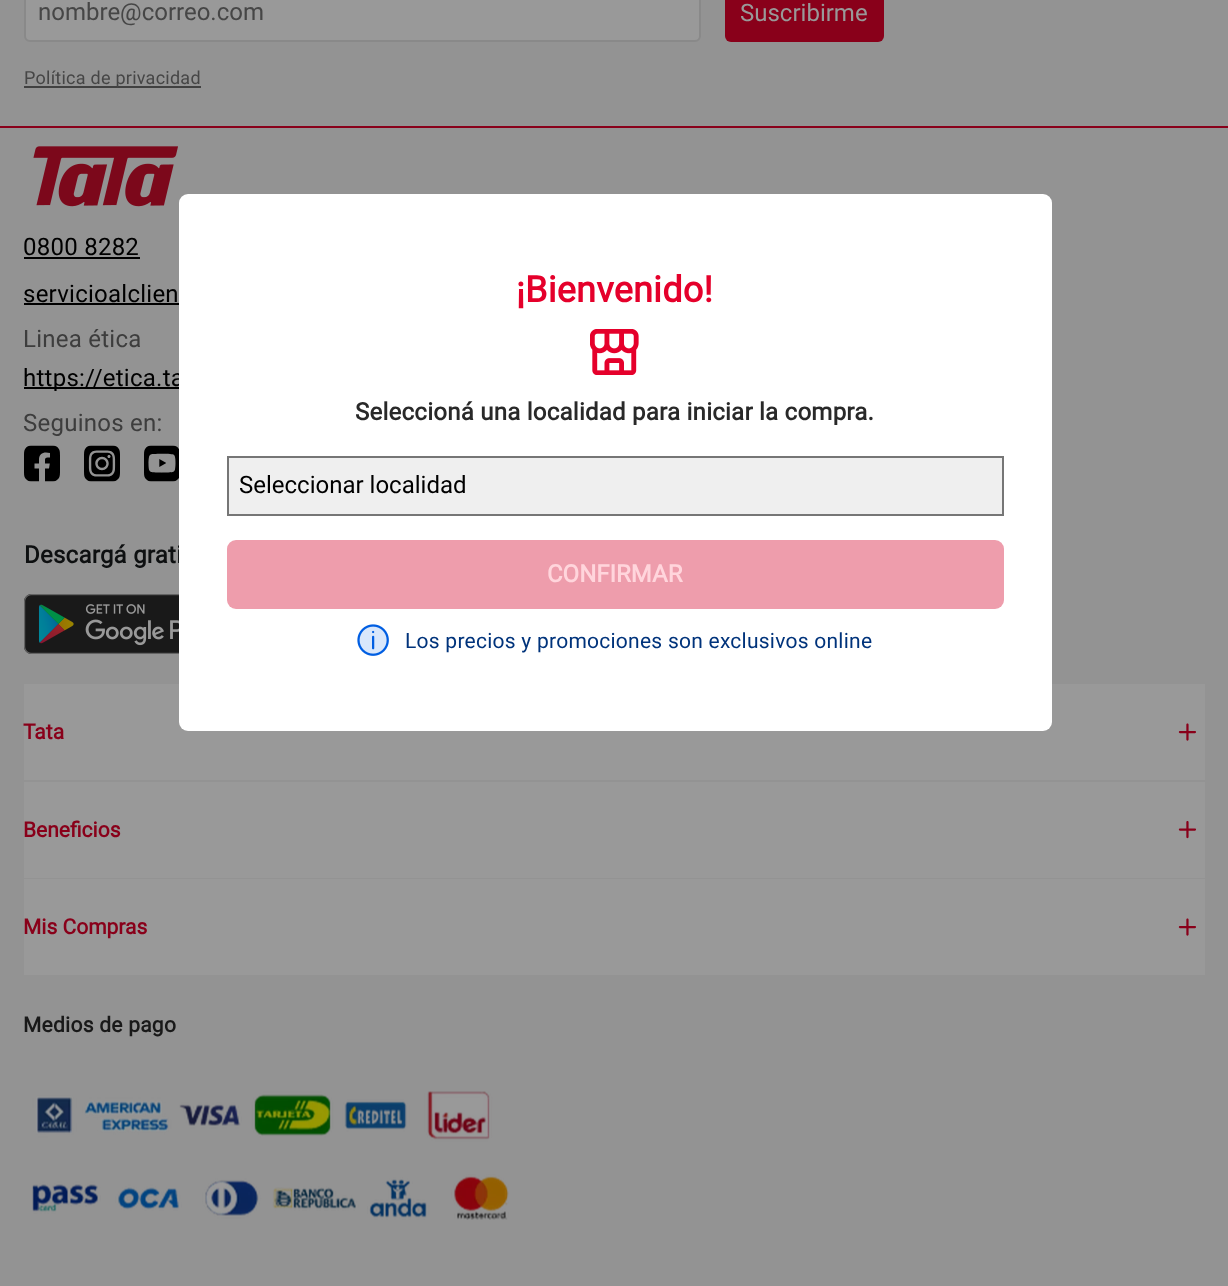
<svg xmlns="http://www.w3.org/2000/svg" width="1228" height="1286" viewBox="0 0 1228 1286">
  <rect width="100%" height="100%" fill="rgb(147,147,147)"/>
  <rect x="25" y="-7" width="675" height="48" rx="5" fill="rgb(153,153,153)" stroke="rgb(137,137,137)" stroke-width="2"/>
  <text x="38" y="20" font-family="Roboto" font-size="24" fill="rgb(70,70,70)">nombre@correo.com</text>
  <rect x="725" y="-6" width="159" height="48" rx="6" fill="rgb(137,0,26)"/>
  <text x="740" y="21" font-family="Roboto" font-size="24" fill="rgb(153,153,153)">Suscribirme</text>
  <rect x="24" y="86" width="177" height="2" fill="rgb(65,65,65)"/>
  <text x="24" y="84" font-family="Roboto" font-size="18" letter-spacing="0.25" fill="rgb(70,70,70)">Política de privacidad</text>
  <rect x="0" y="126" width="1228" height="2" fill="rgb(137,0,26)"/>
  <image x="33" y="146" width="145" height="61" href="pic1.png"/>
  <text x="23" y="255" font-family="Roboto" font-size="24" letter-spacing="0.25" fill="rgb(0,0,0)">0800 8282</text>
  <rect x="24" y="257" width="116" height="2" fill="rgb(0,0,0)"/>
  <text x="23" y="302" font-family="Roboto" font-size="24" letter-spacing="0.25" fill="rgb(0,0,0)">servicioalclien</text>
  <rect x="24" y="303" width="155" height="2" fill="rgb(0,0,0)"/>
  <text x="23" y="347" font-family="Roboto" font-size="24" letter-spacing="0.25" fill="rgb(61,61,61)">Linea ética</text>
  <rect x="24" y="387" width="155" height="2" fill="rgb(0,0,0)"/>
  <text x="23" y="386" font-family="Roboto" font-size="24" letter-spacing="0.25" fill="rgb(0,0,0)">https://etica.ta</text>
  <text x="23" y="431" font-family="Roboto" font-size="24" letter-spacing="0.25" fill="rgb(61,61,61)">Seguinos en:</text>
  <image x="24" y="445" width="36" height="37" href="pic2.png"/>
  <image x="84" y="445" width="36" height="37" href="pic3.png"/>
  <image x="144" y="445" width="35" height="37" href="pic4.png"/>
  <text x="24" y="563" font-family="Roboto" font-size="24" font-weight="bold" letter-spacing="0.25" fill="rgb(14,16,17)">Descargá grati</text>
  <image x="24" y="594" width="155" height="60" href="pic5.png"/>
  <rect x="24" y="684" width="1181" height="96" fill="rgb(153,153,153)"/>
  <text x="23" y="739" font-family="Roboto" font-size="21" font-weight="bold" fill="rgb(137,0,26)">Tata</text>
  <image x="1178" y="723" width="18" height="18" href="pic6.png"/>
  <rect x="24" y="782" width="1181" height="96" fill="rgb(153,153,153)"/>
  <text x="23" y="837" font-family="Roboto" font-size="21" font-weight="bold" fill="rgb(137,0,26)">Beneficios</text>
  <image x="1178" y="821" width="18" height="18" href="pic7.png"/>
  <rect x="24" y="879" width="1181" height="96" fill="rgb(153,153,153)"/>
  <text x="23" y="934" font-family="Roboto" font-size="21" font-weight="bold" fill="rgb(137,0,26)">Mis Compras</text>
  <image x="1178" y="918" width="18" height="18" href="pic8.png"/>
  <text x="23" y="1032" font-family="Roboto" font-size="21" font-weight="bold" letter-spacing="0.25" fill="rgb(25,25,25)">Medios de pago</text>
  <image x="32" y="1091" width="477" height="129" href="pic9.png"/>
  <rect x="179" y="194" width="873" height="537" rx="9" fill="rgb(255,255,255)"/>
  <text x="516" y="302" font-family="Roboto" font-size="36" font-weight="bold" letter-spacing="0.25" fill="rgb(229,0,43)">¡Bienvenido!</text>
  <image x="590" y="329" width="49" height="46" href="pic10.png"/>
  <text x="355" y="420" font-family="Roboto" font-size="24" font-weight="bold" letter-spacing="0.25" fill="rgb(41,41,41)">Seleccioná una localidad para iniciar la compra.</text>
  <rect x="228" y="457" width="775" height="58" fill="rgb(239,239,239)" stroke="rgb(118,118,118)" stroke-width="2"/>
  <text x="239" y="493" font-family="Roboto" font-size="24" fill="rgb(0,0,0)">Seleccionar localidad</text>
  <rect x="227" y="540" width="777" height="69" rx="9" fill="rgb(238,157,172)"/>
  <text x="547" y="582" font-family="Roboto" font-size="24" font-weight="bold" fill="rgb(255,213,220)">CONFIRMAR</text>
  <image x="357" y="624" width="32" height="32" href="pic11.png"/>
  <text x="405" y="648" font-family="Roboto" font-size="21" letter-spacing="0.25" fill="rgb(0,51,123)">Los precios y promociones son exclusivos online</text>
</svg>
